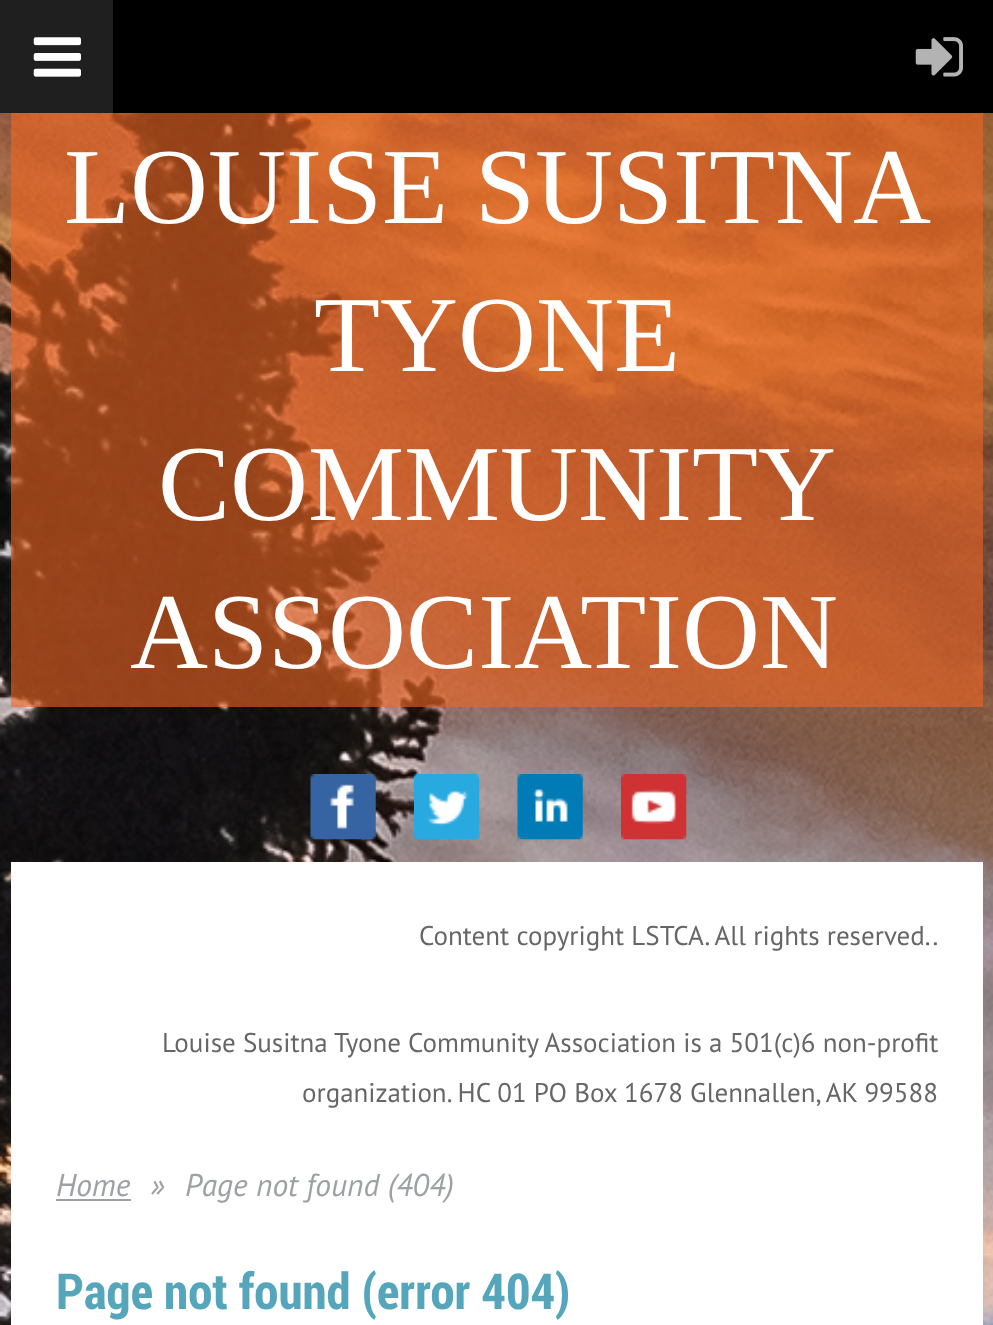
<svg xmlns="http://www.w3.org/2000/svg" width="993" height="1325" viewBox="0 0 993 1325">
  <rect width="100%" height="100%" fill="rgb(255,255,255)"/>
  <image x="0" y="113" width="993" height="1212" href="pic1.png"/>
  <rect x="113" y="0" width="880" height="113" fill="rgb(0,0,0)"/>
  <rect x="0" y="0" width="113" height="113" fill="rgb(31,31,31)"/>
  <image x="33" y="37" width="48" height="40" href="pic2.png"/>
  <image x="915" y="37" width="48" height="40" href="pic3.png"/>
  <rect x="11" y="113" width="972" height="594" fill="rgba(242,101,34,0.6)"/>
  <g font-family="Liberation Serif" font-size="108" fill="rgb(255,255,255)">
    <text x="64" y="223">LOUISE SUSITNA</text>
    <text x="314" y="371">TYONE</text>
    <text x="158" y="520">COMMUNITY</text>
    <text x="130" y="668">ASSOCIATION</text>
  </g>
  <image x="310" y="774" width="66" height="66" href="pic4.png"/>
  <image x="414" y="774" width="66" height="66" href="pic5.png"/>
  <image x="517" y="774" width="66" height="66" href="pic6.png"/>
  <image x="621" y="774" width="66" height="66" href="pic7.png"/>
  <rect x="11" y="862" width="972" height="463" fill="rgb(255,255,255)"/>
  <g font-family="PT Sans" font-size="27" fill="rgb(102,102,102)">
    <text x="419" y="945">Content copyright LSTCA. All rights reserved..</text>
    <text x="162" y="1052">Louise Susitna Tyone Community Association is a 501(c)6 non-profit</text>
    <text x="302" y="1102">organization. HC 01 PO Box 1678 Glennallen, AK 99588</text>
  </g>
  <text x="56" y="1196" font-family="PT Sans" font-size="31.5" font-style="italic" fill="rgb(157,161,163)">Home</text>
  <rect x="56" y="1199" width="75" height="2" fill="rgb(157,161,163)"/>
  <g font-family="PT Sans" font-size="31.5" font-style="italic" fill="rgb(157,161,163)">
    <text x="150" y="1196">»</text>
    <text x="185" y="1196">Page not found (404)</text>
  </g>
  <text x="56" y="1309" font-family="Roboto Condensed" font-size="49.5" font-weight="bold" fill="rgb(85,166,187)">Page not found (error 404)</text>
</svg>
